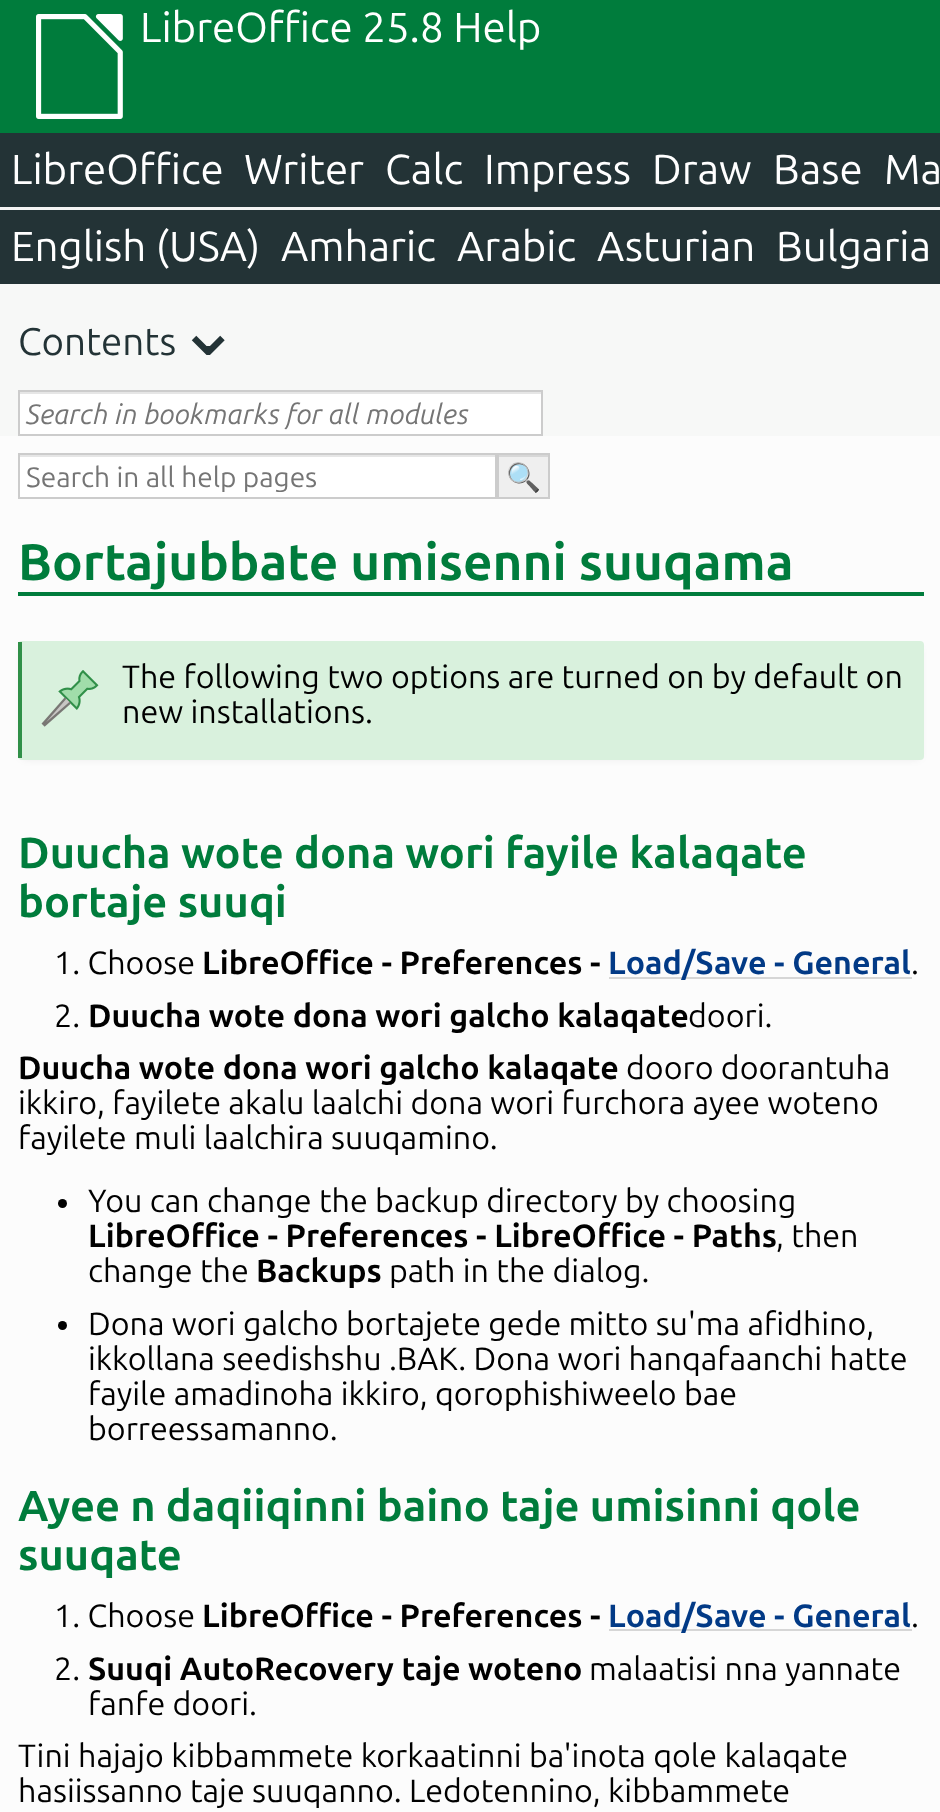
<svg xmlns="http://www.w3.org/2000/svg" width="940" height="1812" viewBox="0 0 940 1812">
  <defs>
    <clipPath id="clip1"><rect x="26" y="460" width="436" height="32"/></clipPath>
  </defs>
  <rect width="100%" height="100%" fill="rgb(247,248,247)"/>
  <rect x="0" y="0" width="940" height="133" fill="rgb(0,124,60)"/>
  <image x="36" y="14" width="87" height="105" href="pic1.png"/>
  <text x="140" y="42" font-family="Ubuntu" font-size="42" fill="rgb(255,255,255)">LibreOffice 25.8 Help</text>
  <rect x="0" y="133" width="940" height="74" fill="rgb(35,51,54)"/>
  <rect x="0" y="207" width="940" height="3" fill="rgb(243,243,243)"/>
  <g font-family="Ubuntu" font-size="42" fill="rgb(255,255,255)">
    <text x="11" y="184">LibreOffice</text>
    <text x="244" y="184">Writer</text>
    <text x="385" y="184">Calc</text>
    <text x="484" y="184">Impress</text>
    <text x="652" y="184">Draw</text>
    <text x="773" y="184">Base</text>
    <text x="884" y="184">Ma</text>
  </g>
  <rect x="0" y="210" width="940" height="74" fill="rgb(35,51,54)"/>
  <g font-family="Ubuntu" font-size="42" fill="rgb(255,255,255)">
    <text x="11" y="261">English (USA)</text>
    <text x="281" y="261">Amharic</text>
    <text x="457" y="261">Arabic</text>
    <text x="597" y="261">Asturian</text>
    <text x="776" y="261">Bulgaria</text>
  </g>
  <text x="18" y="355" font-family="Ubuntu" font-size="38.5" fill="rgb(35,51,54)">Contents</text>
  <text x="176" y="355" font-family="DejaVu Sans" font-size="77" fill="rgb(35,51,54)">⌄</text>
  <rect x="20" y="394" width="521" height="40" fill="rgb(255,255,255)"/>
  <rect x="19" y="392" width="522" height="2" fill="rgb(230,230,230)"/>
  <rect x="19" y="391" width="523" height="44" fill="none" stroke="rgb(204,204,204)" stroke-width="2"/>
  <text x="26" y="424" font-family="Ubuntu" font-size="28" font-style="italic" fill="rgb(117,117,117)">Search in bookmarks for all modules</text>
  <rect x="0" y="436" width="940" height="1376" fill="rgb(252,252,252)"/>
  <rect x="20" y="457" width="475" height="40" fill="rgb(255,255,255)"/>
  <rect x="19" y="455" width="476" height="2" fill="rgb(230,230,230)"/>
  <rect x="19" y="454" width="477" height="44" fill="none" stroke="rgb(204,204,204)" stroke-width="2"/>
  <g clip-path="url(#clip1)">
    <text x="26" y="487" font-family="Ubuntu" font-size="28" fill="rgb(117,117,117)">Search in all help pages</text>
  </g>
  <rect x="499" y="457" width="49" height="40" fill="rgb(239,239,239)"/>
  <rect x="499" y="455" width="49" height="2" fill="rgb(215,215,215)"/>
  <rect x="498" y="454" width="51" height="44" fill="none" stroke="rgb(204,204,204)" stroke-width="2"/>
  <text x="506" y="487" font-family="Noto Color Emoji" font-size="28" fill="rgb(0,0,0)">🔍</text>
  <rect x="18" y="592" width="906" height="4" fill="rgb(0,124,60)"/>
  <text x="18" y="580" font-family="Ubuntu" font-size="51.25" font-weight="bold" fill="rgb(0,124,60)">Bortajubbate umisenni suuqama</text>
  <rect x="23" y="649" width="896" height="109" fill="rgba(0,0,0,0.1)" filter="blur(4.5px)"/>
  <rect x="18" y="641" width="906" height="119" rx="4" fill="rgb(217,241,221)"/>
  <rect x="18" y="642" width="4" height="116" fill="rgb(48,144,72)"/>
  <image x="41" y="670" width="58" height="57" href="pic2.png"/>
  <g font-family="Ubuntu" font-size="32.2" fill="rgb(0,0,0)">
    <text>
      <tspan x="122" y="688">The following two options are turned on by default on</tspan>
      <tspan x="122" y="723">new installations.</tspan>
    </text>
  </g>
  <g font-family="Ubuntu" font-size="43.4" font-weight="bold" fill="rgb(0,124,60)">
    <text>
      <tspan x="18" y="868">Duucha wote dona wori fayile kalaqate</tspan>
      <tspan x="18" y="917">bortaje suuqi</tspan>
    </text>
  </g>
  <text x="54" y="974" font-family="Ubuntu" font-size="32.2" fill="rgb(0,0,0)">1. Choose</text>
  <text x="202" y="974" font-family="Ubuntu" font-size="32.2" font-weight="bold" fill="rgb(0,0,0)">LibreOffice - Preferences -</text>
  <rect x="609" y="977" width="303" height="2" fill="rgb(214,214,214)"/>
  <text x="608" y="974" font-family="Ubuntu" font-size="32.2" font-weight="bold" fill="rgb(2,58,134)">Load/Save - General</text>
  <g font-family="Ubuntu" font-size="32.2" fill="rgb(0,0,0)">
    <text x="911" y="974">.</text>
    <text x="54" y="1027">2.</text>
  </g>
  <text x="88" y="1027" font-family="Ubuntu" font-size="32.2" font-weight="bold" fill="rgb(0,0,0)">Duucha wote dona wori galcho kalaqate</text>
  <text x="688" y="1027" font-family="Ubuntu" font-size="32.2" fill="rgb(0,0,0)">doori.</text>
  <text x="18" y="1079" font-family="Ubuntu" font-size="32.2" font-weight="bold" fill="rgb(0,0,0)">Duucha wote dona wori galcho kalaqate</text>
  <g font-family="Ubuntu" font-size="32.2" fill="rgb(0,0,0)">
    <text x="626" y="1079">dooro doorantuha</text>
    <text>
      <tspan x="18" y="1114">ikkiro, fayilete akalu laalchi dona wori furchora ayee woteno</tspan>
      <tspan x="18" y="1149">fayilete muli laalchira suuqamino.</tspan>
    </text>
  </g>
  <circle cx="62.5" cy="1203.5" r="4.5" fill="rgb(0,0,0)"/>
  <text x="88" y="1212" font-family="Ubuntu" font-size="32.2" fill="rgb(0,0,0)">You can change the backup directory by choosing</text>
  <text x="88" y="1247" font-family="Ubuntu" font-size="32.2" font-weight="bold" fill="rgb(0,0,0)">LibreOffice - Preferences - LibreOffice - Paths</text>
  <g font-family="Ubuntu" font-size="32.2" fill="rgb(0,0,0)">
    <text x="776" y="1247">, then</text>
    <text x="88" y="1282">change the</text>
  </g>
  <text x="256" y="1282" font-family="Ubuntu" font-size="32.2" font-weight="bold" fill="rgb(0,0,0)">Backups</text>
  <text x="389" y="1282" font-family="Ubuntu" font-size="32.2" fill="rgb(0,0,0)">path in the dialog.</text>
  <circle cx="62.5" cy="1325.5" r="4.5" fill="rgb(0,0,0)"/>
  <g font-family="Ubuntu" font-size="32.2" fill="rgb(0,0,0)">
    <text>
      <tspan x="88" y="1335">Dona wori galcho bortajete gede mitto su'ma afidhino,</tspan>
      <tspan x="88" y="1370">ikkollana seedishshu .BAK. Dona wori hanqafaanchi hatte</tspan>
      <tspan x="88" y="1405">fayile amadinoha ikkiro, qorophishiweelo bae</tspan>
      <tspan x="88" y="1440">borreessamanno.</tspan>
    </text>
  </g>
  <g font-family="Ubuntu" font-size="43.4" font-weight="bold" fill="rgb(0,124,60)">
    <text>
      <tspan x="18" y="1521">Ayee n daqiiqinni baino taje umisinni qole</tspan>
      <tspan x="18" y="1570">suuqate</tspan>
    </text>
  </g>
  <text x="54" y="1627" font-family="Ubuntu" font-size="32.2" fill="rgb(0,0,0)">1. Choose</text>
  <text x="202" y="1627" font-family="Ubuntu" font-size="32.2" font-weight="bold" fill="rgb(0,0,0)">LibreOffice - Preferences -</text>
  <rect x="609" y="1629" width="303" height="2" fill="rgb(214,214,214)"/>
  <text x="608" y="1627" font-family="Ubuntu" font-size="32.2" font-weight="bold" fill="rgb(2,58,134)">Load/Save - General</text>
  <g font-family="Ubuntu" font-size="32.2" fill="rgb(0,0,0)">
    <text x="911" y="1627">.</text>
    <text x="54" y="1680">2.</text>
  </g>
  <text x="88" y="1680" font-family="Ubuntu" font-size="32.2" font-weight="bold" fill="rgb(0,0,0)">Suuqi AutoRecovery taje woteno</text>
  <g font-family="Ubuntu" font-size="32.2" fill="rgb(0,0,0)">
    <text x="589" y="1680">malaatisi nna yannate</text>
    <text x="88" y="1715">fanfe doori.</text>
    <text>
      <tspan x="18" y="1767">Tini hajajo kibbammete korkaatinni ba'inota qole kalaqate</tspan>
      <tspan x="18" y="1802">hasiissanno taje suuqanno. Ledotennino, kibbammete</tspan>
    </text>
  </g>
</svg>
